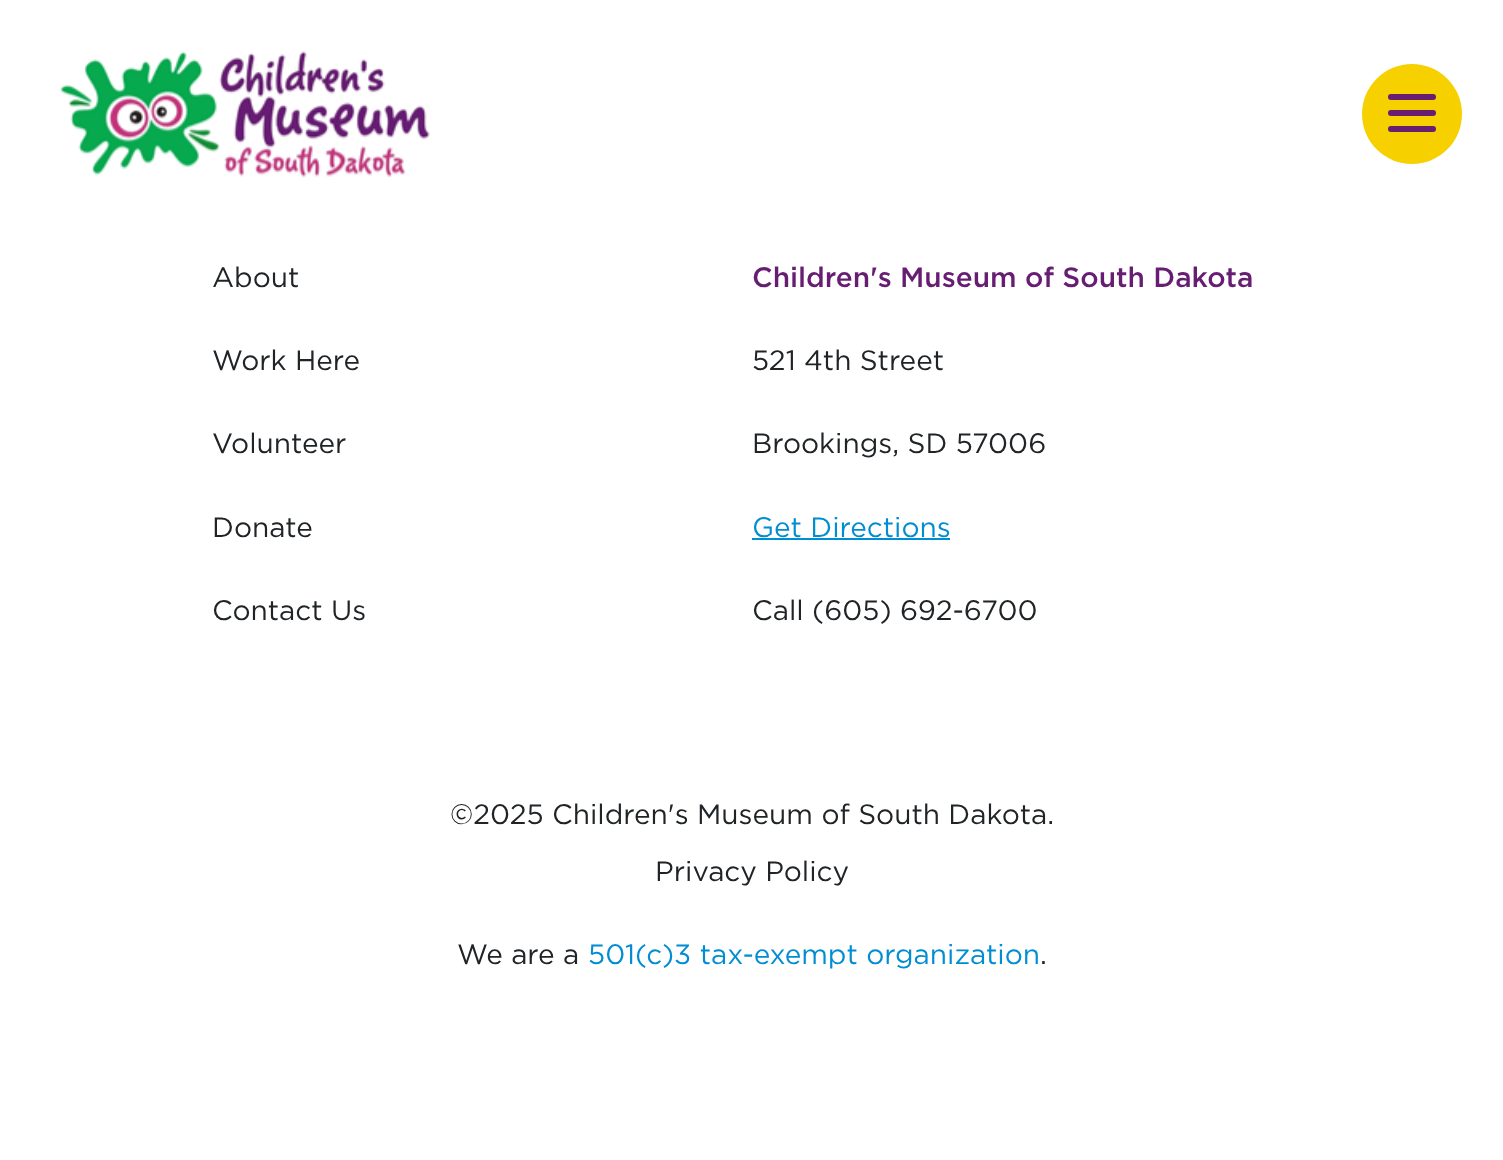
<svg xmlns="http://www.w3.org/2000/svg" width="1503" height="1160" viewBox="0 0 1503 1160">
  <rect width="100%" height="100%" fill="rgb(255,255,255)"/>
  <image x="60" y="51" width="370" height="127" href="pic1.png"/>
  <circle cx="1412" cy="114" r="50" fill="rgb(247,208,0)"/>
  <rect x="1388" y="94" width="48" height="6" rx="3" fill="rgb(102,29,114)"/>
  <rect x="1388" y="110" width="48" height="6" rx="3" fill="rgb(102,29,114)"/>
  <rect x="1388" y="126" width="48" height="6" rx="3" fill="rgb(102,29,114)"/>
  <g font-family="Gotham" font-size="28" fill="rgb(32,36,38)">
    <text x="212" y="287">About</text>
    <text x="212" y="370">Work Here</text>
    <text x="212" y="453">Volunteer</text>
    <text x="212" y="537">Donate</text>
    <text x="212" y="620">Contact Us</text>
  </g>
  <text x="752" y="287" font-family="Gotham" font-size="28" font-weight="500" fill="rgb(102,29,114)">Children's Museum of South Dakota</text>
  <g font-family="Gotham" font-size="28" fill="rgb(32,36,38)">
    <text x="752" y="370">521 4th Street</text>
    <text x="752" y="453">Brookings, SD 57006</text>
  </g>
  <text x="752" y="537" font-family="Gotham" font-size="28" fill="rgb(0,141,210)">Get Directions</text>
  <rect x="752" y="538" width="198" height="2" fill="rgb(0,141,210)"/>
  <g font-family="Gotham" font-size="28" fill="rgb(32,36,38)">
    <text x="752" y="620">Call (605) 692-6700</text>
    <text x="450" y="824">©2025 Children's Museum of South Dakota.</text>
    <text x="655" y="881">Privacy Policy</text>
    <text x="457" y="964">We are a</text>
  </g>
  <text x="588" y="964" font-family="Gotham" font-size="28" fill="rgb(0,141,210)">501(c)3 tax-exempt organization</text>
  <text x="1040" y="964" font-family="Gotham" font-size="28" fill="rgb(32,36,38)">.</text>
</svg>
